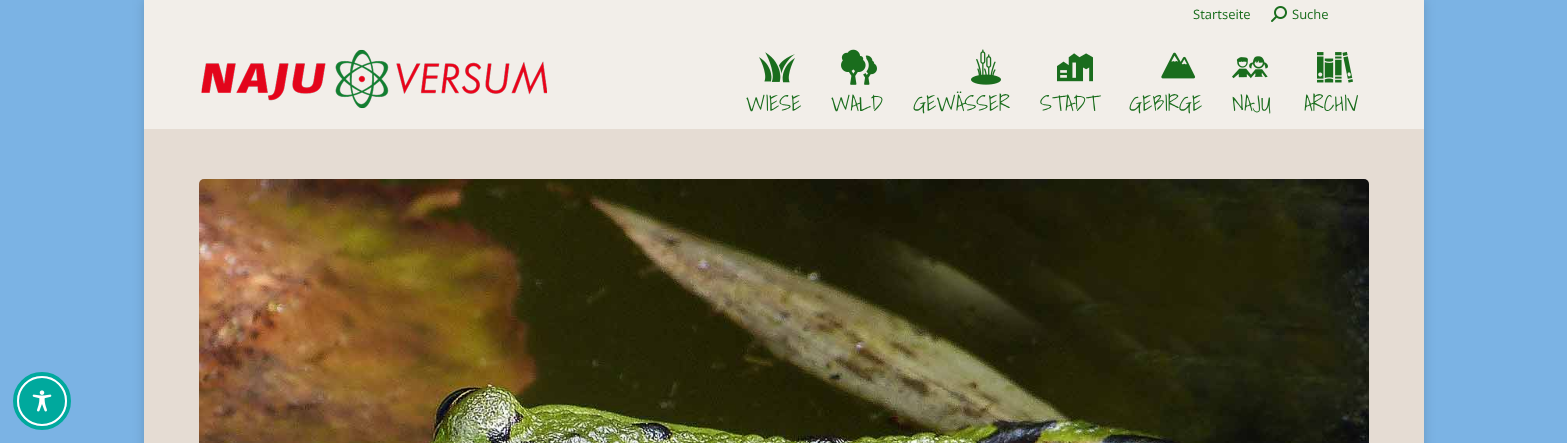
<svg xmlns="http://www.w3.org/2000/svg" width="1567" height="443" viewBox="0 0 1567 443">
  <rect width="100%" height="100%" fill="rgb(123,179,228)"/>
  <rect x="144" y="0" width="1280" height="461" fill="rgba(0,0,0,0.15)" filter="blur(6px)"/>
  <rect x="144" y="129" width="1280" height="314" fill="rgb(229,220,211)"/>
  <rect x="144" y="0" width="1280" height="129" fill="rgb(242,238,233)"/>
  <text x="1193" y="19" font-family="Open Sans" font-size="13" fill="rgb(26,109,29)">Startseite</text>
  <image x="1271" y="6" width="16" height="16" href="pic1.png"/>
  <text x="1292" y="19" font-family="Open Sans" font-size="13" fill="rgb(26,109,29)">Suche</text>
  <image x="201" y="49" width="347" height="60" href="pic2.png"/>
  <image x="759" y="52" width="36" height="31" href="pic3.png"/>
  <text x="746" y="111" font-family="Shadows Into Light" font-size="22" fill="rgb(26,109,29)">WIESE</text>
  <image x="841" y="49" width="36" height="36" href="pic4.png"/>
  <text x="831" y="111" font-family="Shadows Into Light" font-size="22" fill="rgb(26,109,29)">WALD</text>
  <image x="971" y="49" width="30" height="36" href="pic5.png"/>
  <text x="913" y="111" font-family="Shadows Into Light" font-size="22" fill="rgb(26,109,29)">GEWÄSSER</text>
  <image x="1057" y="53" width="36" height="29" href="pic6.png"/>
  <text x="1040" y="111" font-family="Shadows Into Light" font-size="22" fill="rgb(26,109,29)">STADT</text>
  <image x="1161" y="52" width="35" height="27" href="pic7.png"/>
  <text x="1129" y="111" font-family="Shadows Into Light" font-size="22" fill="rgb(26,109,29)">GEBIRGE</text>
  <image x="1232" y="56" width="36" height="23" href="pic8.png"/>
  <text x="1232" y="111" font-family="Shadows Into Light" font-size="22" fill="rgb(26,109,29)">NAJU</text>
  <image x="1317" y="51" width="36" height="32" href="pic9.png"/>
  <text x="1304" y="111" font-family="Shadows Into Light" font-size="22" fill="rgb(26,109,29)">ARCHIV</text>
  <image x="199" y="179" width="1170" height="264" href="pic10.png"/>
  <circle cx="42" cy="401" r="27" fill="none" stroke="rgb(0,169,157)" stroke-width="4"/>
  <circle cx="42" cy="401" r="24" fill="rgb(0,169,157)" stroke="rgb(255,255,255)" stroke-width="2"/>
  <image x="32" y="390" width="20" height="22" href="pic11.png"/>
</svg>
